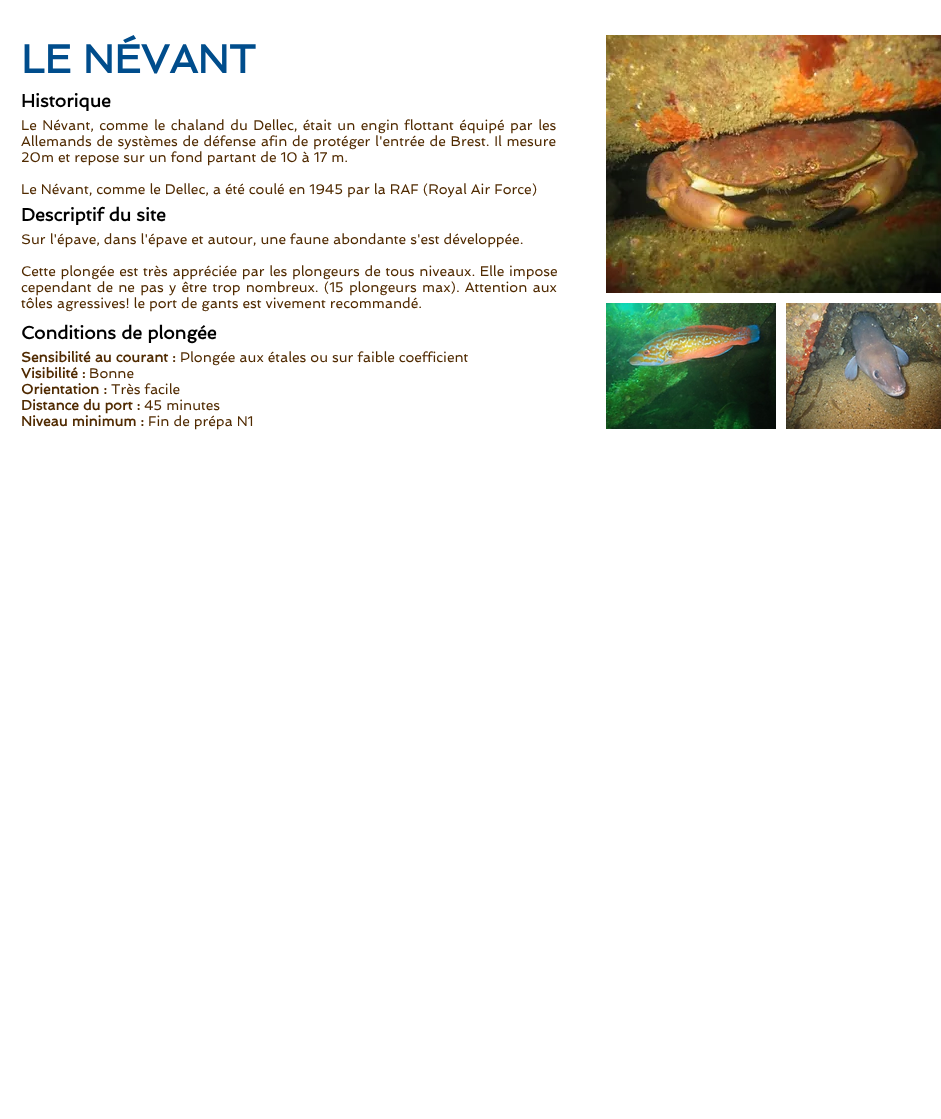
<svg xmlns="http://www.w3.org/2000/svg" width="941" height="1119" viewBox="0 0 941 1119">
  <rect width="100%" height="100%" fill="rgb(255,255,255)"/>
  <text x="21" y="73" font-family="Spinnaker" font-size="40" font-weight="bold" fill="rgb(0,77,140)">LE NÉVANT</text>
  <image x="606" y="35" width="335" height="258" href="pic1.png"/>
  <text x="21" y="107" font-family="Spinnaker" font-size="18" font-weight="bold" fill="rgb(0,0,0)">Historique</text>
  <g font-family="Spinnaker" font-size="14" fill="rgb(80,42,0)">
    <text>
      <tspan x="21" y="130" word-spacing="1.5">Le Névant, comme le chaland du Dellec, était un engin flottant équipé par les</tspan>
      <tspan x="21" y="146" word-spacing="0.75">Allemands de systèmes de défense afin de protéger l'entrée de Brest. Il mesure</tspan>
      <tspan x="21" y="162">20m et repose sur un fond partant de 10 à 17 m.</tspan>
    </text>
    <text x="21" y="194">Le Névant, comme le Dellec, a été coulé en 1945 par la RAF (Royal Air Force)</text>
  </g>
  <text x="21" y="221" font-family="Spinnaker" font-size="18" font-weight="bold" fill="rgb(0,0,0)">Descriptif du site</text>
  <g font-family="Spinnaker" font-size="14" fill="rgb(80,42,0)">
    <text x="21" y="244">Sur l'épave, dans l'épave et autour, une faune abondante s'est développée.</text>
    <text>
      <tspan x="21" y="276" word-spacing="0.7">Cette plongée est très appréciée par les plongeurs de tous niveaux. Elle impose</tspan>
      <tspan x="21" y="292" word-spacing="1.25">cependant de ne pas y être trop nombreux. (15 plongeurs max). Attention aux</tspan>
      <tspan x="21" y="308">tôles agressives! le port de gants est vivement recommandé.</tspan>
    </text>
  </g>
  <text x="21" y="339" font-family="Spinnaker" font-size="18" font-weight="bold" fill="rgb(0,0,0)">Conditions de plongée</text>
  <image x="606" y="303" width="170" height="126" href="pic2.png"/>
  <image x="786" y="303" width="155" height="126" href="pic3.png"/>
  <text x="21" y="362" font-family="Spinnaker" font-size="14" font-weight="bold" fill="rgb(80,42,0)">Sensibilité au courant :</text>
  <text x="180" y="362" font-family="Spinnaker" font-size="14" fill="rgb(80,42,0)">Plongée aux étales ou sur faible coefficient</text>
  <text x="21" y="378" font-family="Spinnaker" font-size="14" font-weight="bold" fill="rgb(80,42,0)">Visibilité :</text>
  <text x="89" y="378" font-family="Spinnaker" font-size="14" fill="rgb(80,42,0)">Bonne</text>
  <text x="21" y="394" font-family="Spinnaker" font-size="14" font-weight="bold" fill="rgb(80,42,0)">Orientation :</text>
  <text x="111" y="394" font-family="Spinnaker" font-size="14" fill="rgb(80,42,0)">Très facile</text>
  <text x="21" y="410" font-family="Spinnaker" font-size="14" font-weight="bold" fill="rgb(80,42,0)">Distance du port :</text>
  <text x="144" y="410" font-family="Spinnaker" font-size="14" fill="rgb(80,42,0)">45 minutes</text>
  <text x="21" y="426" font-family="Spinnaker" font-size="14" font-weight="bold" fill="rgb(80,42,0)">Niveau minimum :</text>
  <text x="148" y="426" font-family="Spinnaker" font-size="14" fill="rgb(80,42,0)">Fin de prépa N1</text>
</svg>
